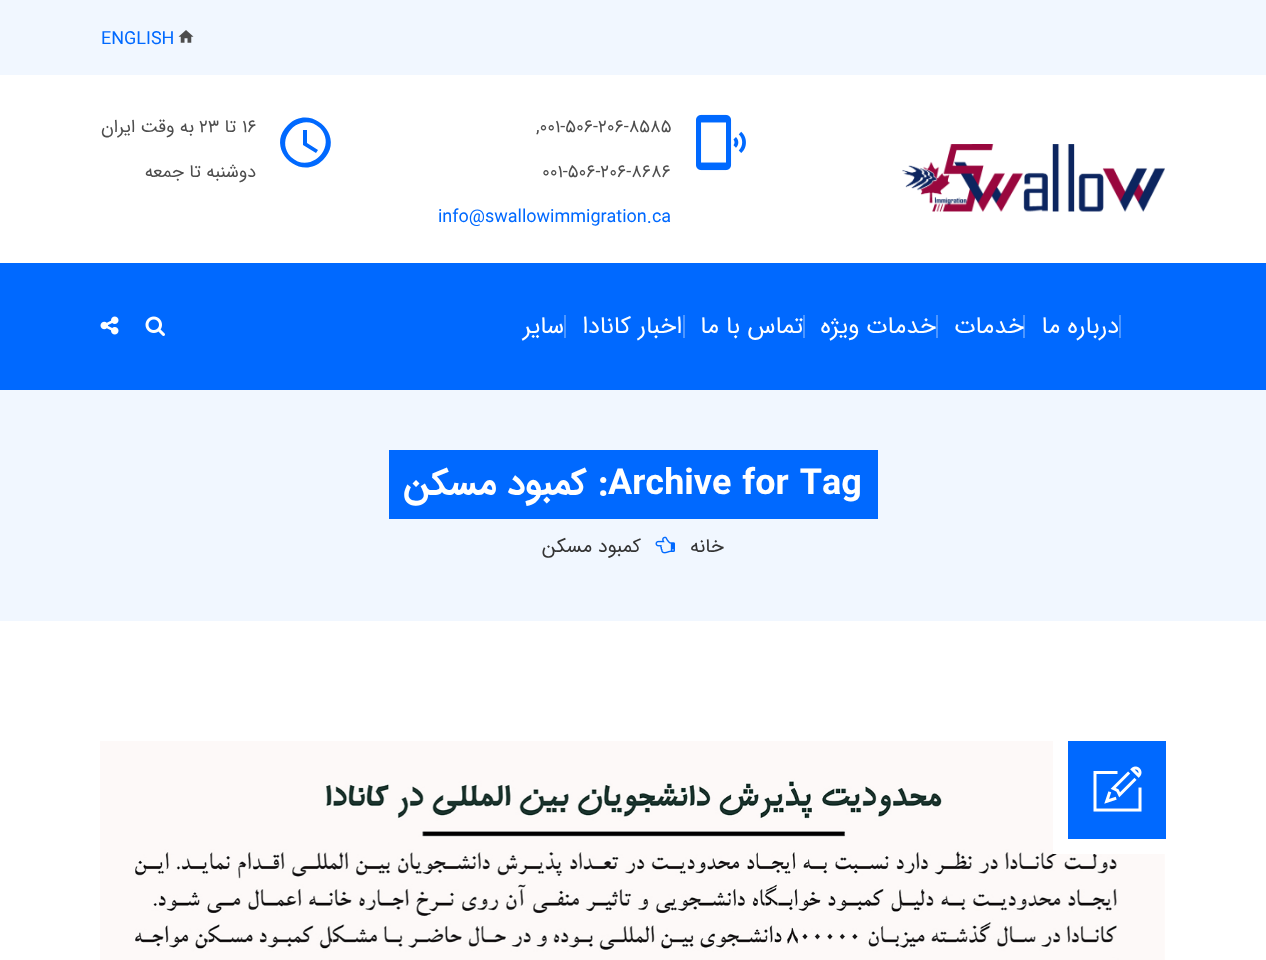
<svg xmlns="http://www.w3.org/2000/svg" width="1266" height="960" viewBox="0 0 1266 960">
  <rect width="100%" height="100%" fill="rgb(255,255,255)"/>
  <rect x="0" y="0" width="1266" height="75" fill="rgb(241,247,255)"/>
  <image x="178" y="30" width="16" height="13" href="pic1.png"/>
  <text x="101" y="44" font-family="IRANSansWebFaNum" font-size="18" fill="rgb(0,105,255)">ENGLISH</text>
  <image x="902" y="144" width="263" height="68" href="pic2.png"/>
  <image x="696" y="114" width="50" height="57" href="pic3.png"/>
  <g font-family="IRANSansWebFaNum" font-size="18" fill="rgb(77,77,77)">
    <text x="536" y="132">,۰۰۱-۵۰۶-۲۰۶-۸۵۸۵</text>
    <text x="542" y="177">۰۰۱-۵۰۶-۲۰۶-۸۶۸۶</text>
  </g>
  <text x="438" y="222" font-family="IRANSansWebFaNum" font-size="18" fill="rgb(0,105,255)">info@swallowimmigration.ca</text>
  <path d="M288 125C311 102 347 137 323 160C300 183 264 148 288 125ZM291 157C310 175 338 147 320 128C301 110 273 138 291 157ZM307 130V143L318 150L316 153L303 145V130Z" fill="rgb(0,105,255)"/>
  <text x="242" y="132" font-family="IRANSansWebFaNum" font-size="18" fill="rgb(77,77,77)">١۶</text>
  <text x="236" y="132" font-family="IRANSansWebFaNum" font-size="18" direction="rtl" fill="rgb(77,77,77)">تا</text>
  <text x="199" y="132" font-family="IRANSansWebFaNum" font-size="18" fill="rgb(77,77,77)">٢3</text>
  <g font-family="IRANSansWebFaNum" font-size="18" direction="rtl" fill="rgb(77,77,77)">
    <text x="194" y="132">به وقت ایران</text>
    <text x="256" y="177">دوشنبه تا جمعه</text>
  </g>
  <rect x="0" y="263" width="1266" height="127" fill="rgb(0,105,255)"/>
  <rect x="1119" y="315" width="2" height="23" fill="rgb(77,150,255)"/>
  <text x="1119" y="333" font-family="IRANSansWebFaNum" font-size="24" direction="rtl" fill="rgb(255,255,255)">درباره ما</text>
  <rect x="1023" y="315" width="2" height="23" fill="rgb(77,150,255)"/>
  <text x="1024" y="333" font-family="IRANSansWebFaNum" font-size="24" direction="rtl" fill="rgb(255,255,255)">خدمات</text>
  <rect x="936" y="315" width="2" height="23" fill="rgb(77,150,255)"/>
  <text x="936" y="333" font-family="IRANSansWebFaNum" font-size="24" direction="rtl" fill="rgb(255,255,255)">خدمات ویژه</text>
  <rect x="803" y="315" width="2" height="23" fill="rgb(77,150,255)"/>
  <text x="803" y="333" font-family="IRANSansWebFaNum" font-size="24" direction="rtl" fill="rgb(255,255,255)">تماس با ما</text>
  <rect x="683" y="315" width="2" height="23" fill="rgb(77,150,255)"/>
  <text x="682" y="333" font-family="IRANSansWebFaNum" font-size="24" direction="rtl" fill="rgb(255,255,255)">اخبار کانادا</text>
  <rect x="564" y="315" width="2" height="23" fill="rgb(77,150,255)"/>
  <text x="564" y="333" font-family="IRANSansWebFaNum" font-size="24" direction="rtl" fill="rgb(255,255,255)">سایر</text>
  <image x="145" y="316" width="20" height="20" href="pic4.png"/>
  <image x="100" y="316" width="19" height="19" href="pic5.png"/>
  <rect x="0" y="390" width="1266" height="231" fill="rgb(241,247,255)"/>
  <rect x="389" y="450" width="489" height="69" fill="rgb(0,105,255)"/>
  <text x="608" y="494" font-family="IRANSansWebFaNum" font-size="36" font-weight="bold" fill="rgb(255,255,255)">Archive for Tag</text>
  <text x="608" y="494" font-family="IRANSansWebFaNum" font-size="36" font-weight="bold" direction="rtl" fill="rgb(255,255,255)">: کمبود مسکن</text>
  <text x="724" y="552" font-family="IRANSansWebFaNum" font-size="19.5" direction="rtl" fill="rgb(51,51,51)">خانه</text>
  <image x="655" y="536" width="20" height="18" href="pic6.png"/>
  <text x="641" y="552" font-family="IRANSansWebFaNum" font-size="19.5" direction="rtl" fill="rgb(51,51,51)">کمبود مسکن</text>
  <image x="100" y="741" width="1065" height="219" href="pic7.png"/>
  <rect x="1068" y="741" width="98" height="98" fill="rgb(0,105,255)"/>
  <rect x="1068" y="839" width="97" height="15" fill="rgb(255,255,255)"/>
  <rect x="1053" y="741" width="15" height="113" fill="rgb(255,255,255)"/>
  <image x="1093" y="766" width="49" height="46" href="pic8.png"/>
</svg>
